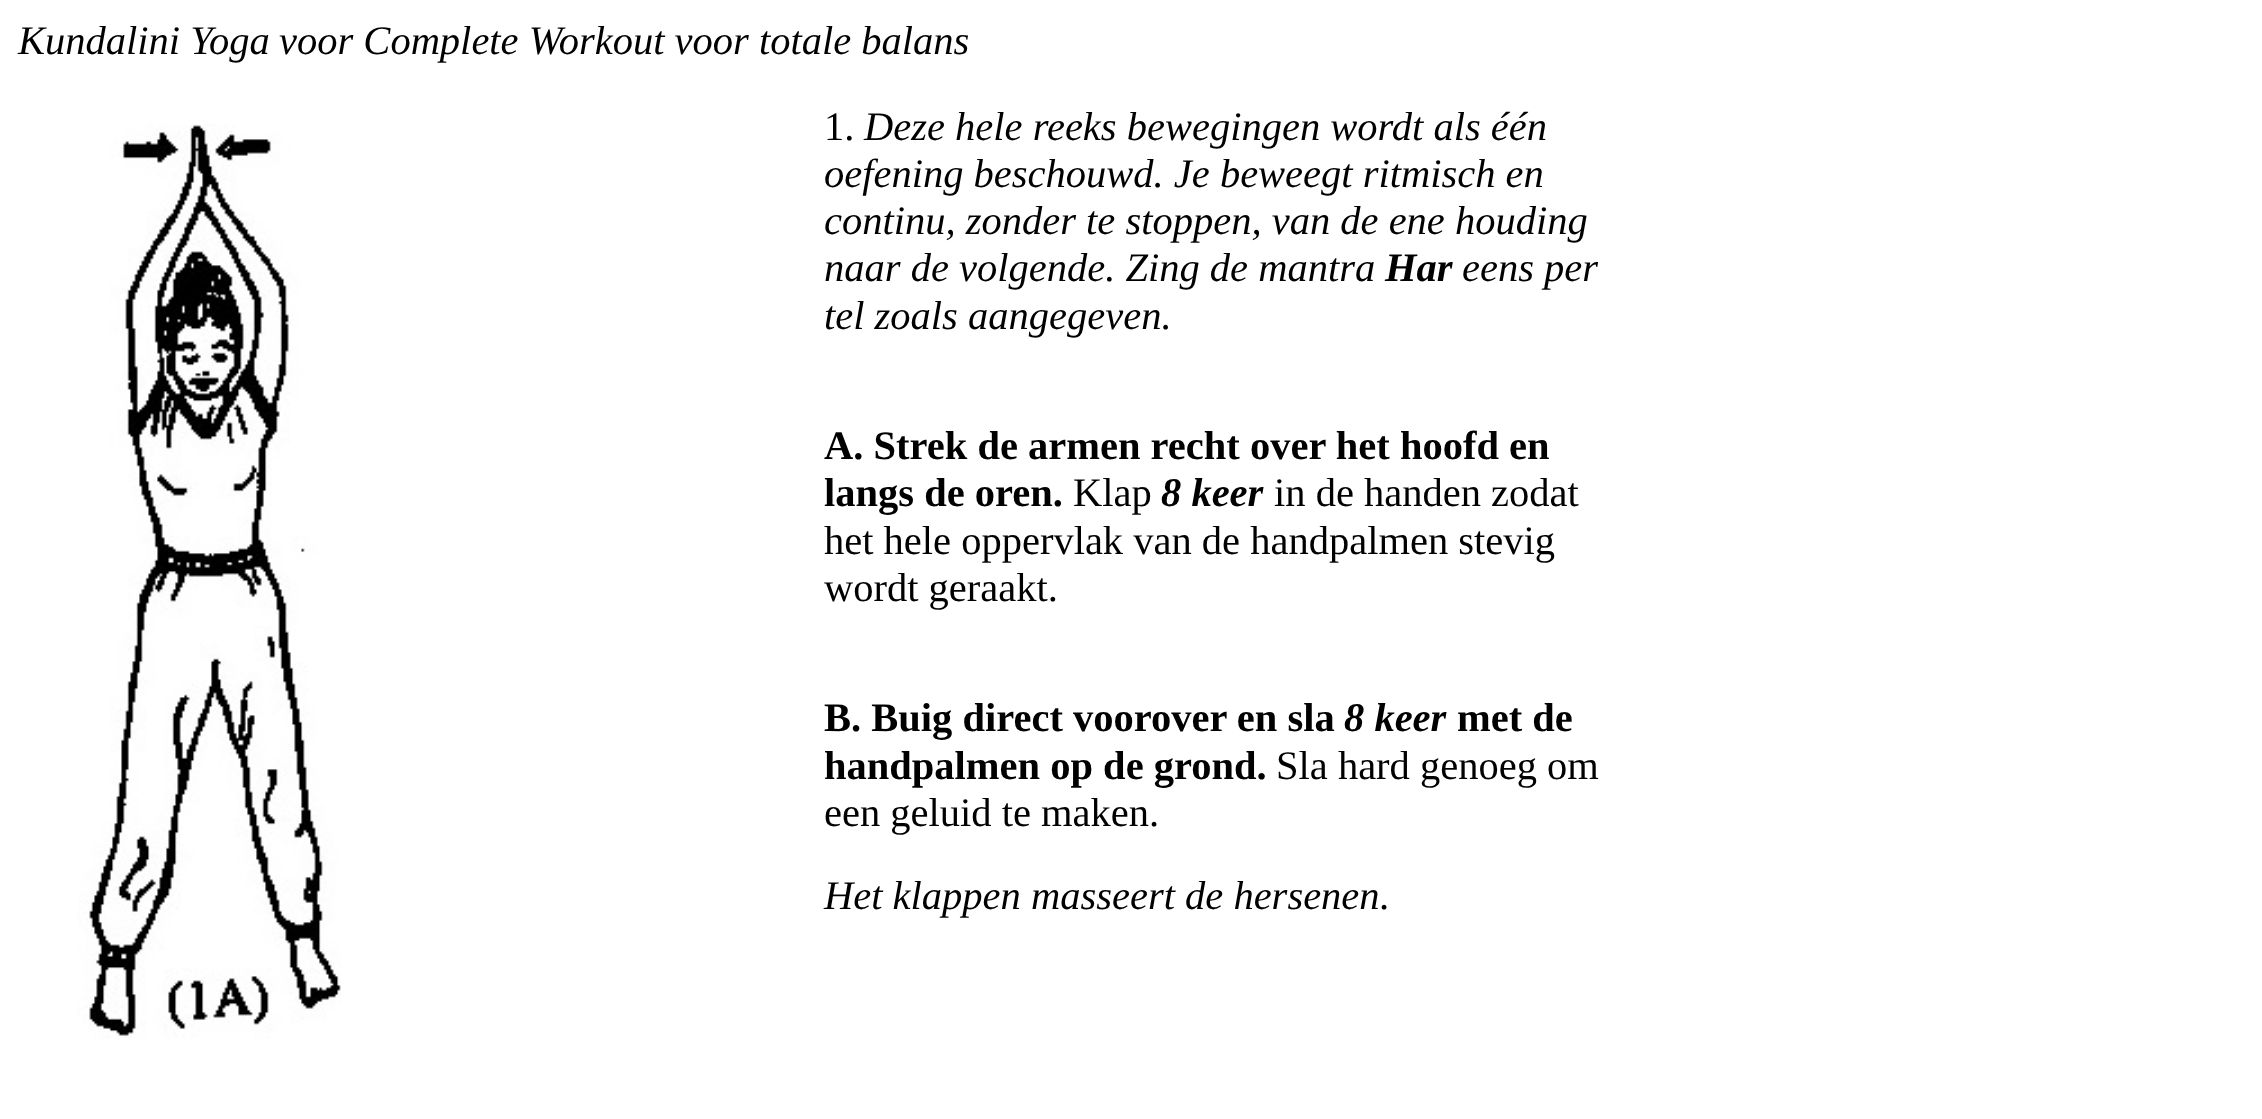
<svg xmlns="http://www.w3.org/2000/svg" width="2262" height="1119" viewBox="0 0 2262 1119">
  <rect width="100%" height="100%" fill="rgb(255,255,255)"/>
  <g font-family="Liberation Serif" font-size="40.5" font-style="italic" fill="rgb(0,0,0)">
    <text x="18" y="54">Kundalini Yoga</text>
    <text x="279" y="54">voor Complete Workout voor totale balans</text>
  </g>
  <image x="77" y="124" width="264" height="915" href="pic1.png"/>
  <text x="824" y="140" font-family="Liberation Serif" font-size="40.5" fill="rgb(0,0,0)">1.</text>
  <g font-family="Liberation Serif" font-size="40.5" font-style="italic" fill="rgb(0,0,0)">
    <text x="864" y="140">Deze hele reeks bewegingen wordt als één</text>
    <text>
      <tspan x="824" y="187">oefening beschouwd. Je beweegt ritmisch en</tspan>
      <tspan x="824" y="234">continu, zonder te stoppen, van de ene houding</tspan>
      <tspan x="824" y="281">naar de volgende. Zing de mantra</tspan>
    </text>
  </g>
  <text x="1385" y="281" font-family="Liberation Serif" font-size="40.5" font-weight="bold" font-style="italic" fill="rgb(0,0,0)">Har</text>
  <g font-family="Liberation Serif" font-size="40.5" font-style="italic" fill="rgb(0,0,0)">
    <text x="1462" y="281">eens per</text>
    <text x="824" y="329">tel zoals aangegeven.</text>
  </g>
  <g font-family="Liberation Serif" font-size="40.5" font-weight="bold" fill="rgb(0,0,0)">
    <text>
      <tspan x="824" y="459">A. Strek de armen recht over het hoofd en</tspan>
      <tspan x="824" y="506">langs de oren.</tspan>
    </text>
  </g>
  <text x="1073" y="506" font-family="Liberation Serif" font-size="40.5" fill="rgb(0,0,0)">Klap</text>
  <text x="1161" y="506" font-family="Liberation Serif" font-size="40.5" font-weight="bold" font-style="italic" fill="rgb(0,0,0)">8 keer</text>
  <g font-family="Liberation Serif" font-size="40.5" fill="rgb(0,0,0)">
    <text x="1274" y="506">in de handen zodat</text>
    <text>
      <tspan x="824" y="554">het hele oppervlak van de handpalmen stevig</tspan>
      <tspan x="824" y="601">wordt geraakt.</tspan>
    </text>
  </g>
  <text x="824" y="731" font-family="Liberation Serif" font-size="40.5" font-weight="bold" fill="rgb(0,0,0)">B. Buig direct voorover en sla</text>
  <text x="1344" y="731" font-family="Liberation Serif" font-size="40.5" font-weight="bold" font-style="italic" fill="rgb(0,0,0)">8 keer</text>
  <g font-family="Liberation Serif" font-size="40.5" font-weight="bold" fill="rgb(0,0,0)">
    <text x="1457" y="731">met de</text>
    <text x="824" y="779">handpalmen op de grond.</text>
  </g>
  <g font-family="Liberation Serif" font-size="40.5" fill="rgb(0,0,0)">
    <text x="1276" y="779">Sla hard genoeg om</text>
    <text x="824" y="826">een geluid te maken.</text>
  </g>
  <text x="824" y="909" font-family="Liberation Serif" font-size="40.5" font-style="italic" fill="rgb(0,0,0)">Het klappen masseert de hersenen</text>
  <text x="1379" y="909" font-family="Liberation Serif" font-size="40.5" fill="rgb(0,0,0)">.</text>
</svg>
